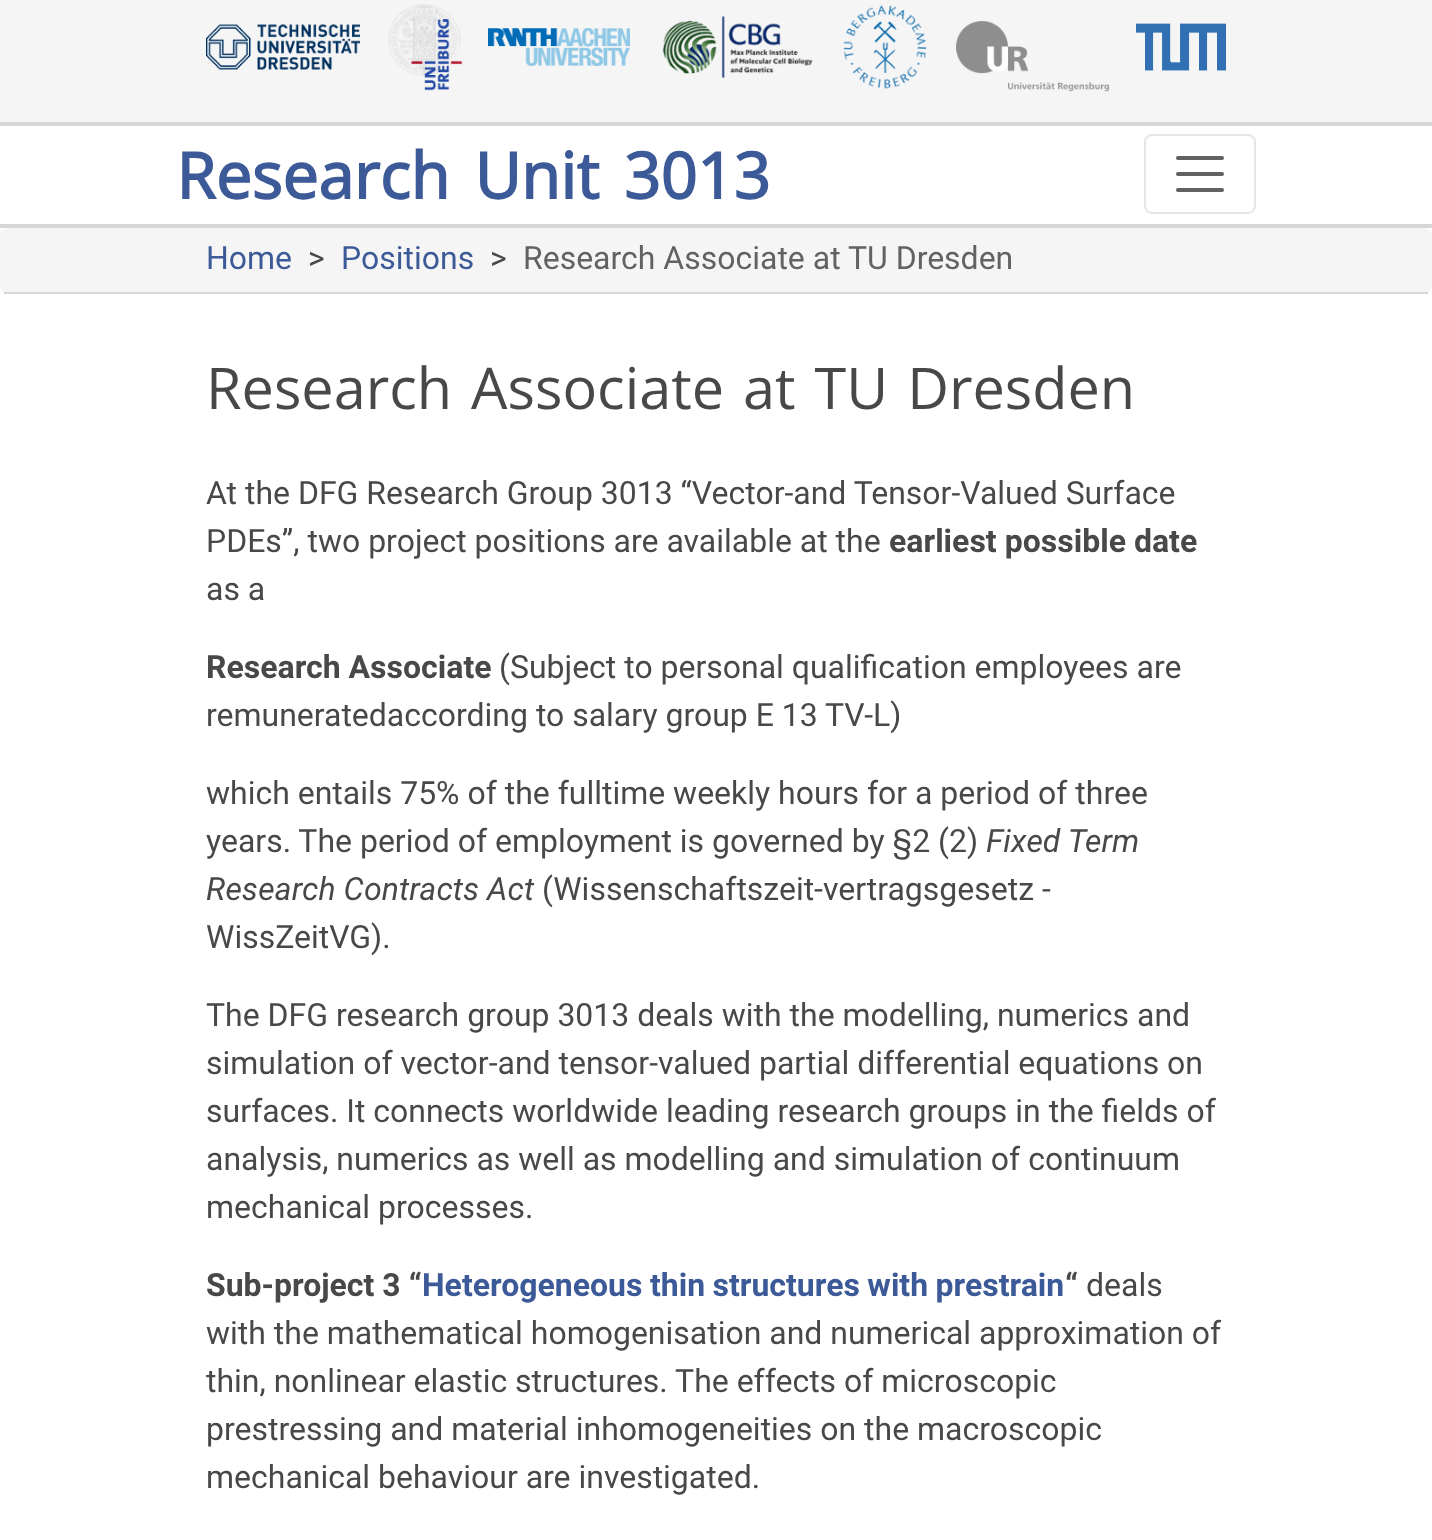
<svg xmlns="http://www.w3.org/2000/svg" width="1432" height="1540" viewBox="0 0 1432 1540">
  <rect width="100%" height="100%" fill="rgb(255,255,255)"/>
  <rect x="0" y="0" width="1432" height="122" fill="rgb(245,245,245)"/>
  <image x="206" y="24" width="154" height="46" href="pic1.png"/>
  <image x="388" y="4" width="75" height="87" href="pic2.png"/>
  <image x="488" y="28" width="142" height="38" href="pic3.png"/>
  <image x="662" y="16" width="151" height="62" href="pic4.png"/>
  <image x="843" y="5" width="84" height="84" href="pic5.png"/>
  <image x="956" y="21" width="154" height="71" href="pic6.png"/>
  <image x="1136" y="23" width="90" height="48" href="pic7.png"/>
  <rect x="0" y="122" width="1432" height="4" fill="rgb(214,214,214)"/>
  <rect x="0" y="224" width="1432" height="4" fill="rgb(214,214,214)"/>
  <text x="176" y="199" word-spacing="8" font-family="Open Sans" font-size="64" font-weight="bold" fill="rgb(61,90,152)">Research Unit 3013</text>
  <rect x="1145" y="135" width="110" height="78" rx="7" fill="none" stroke="rgb(230,230,230)" stroke-width="2"/>
  <path d="M1178 158H1222M1178 174H1222M1178 190H1222" fill="none" stroke="rgb(98,98,98)" stroke-width="4" stroke-linecap="round"/>
  <rect x="0" y="228" width="1432" height="66" rx="8" fill="rgb(245,245,245)"/>
  <rect x="4" y="292" width="1424" height="2" fill="rgb(214,214,214)"/>
  <text x="206" y="269" font-family="Roboto" font-size="32" fill="rgb(61,90,152)">Home</text>
  <text x="308" y="269" font-family="Roboto" font-size="32" fill="rgb(72,72,72)">&gt;</text>
  <text x="341" y="269" font-family="Roboto" font-size="32" fill="rgb(61,90,152)">Positions</text>
  <text x="490" y="269" font-family="Roboto" font-size="32" fill="rgb(72,72,72)">&gt;</text>
  <text x="523" y="269" font-family="Roboto" font-size="32" fill="rgb(98,98,98)">Research Associate at TU Dresden</text>
  <text x="206" y="409" word-spacing="4" font-family="Open Sans" font-size="57.6" fill="rgb(72,72,72)">Research Associate at TU Dresden</text>
  <g font-family="Roboto" font-size="32" fill="rgb(72,72,72)">
    <text>
      <tspan x="206" y="504">At the DFG Research Group 3013 “Vector-and Tensor-Valued Surface</tspan>
      <tspan x="206" y="552">PDEs”, two project positions are available at the</tspan>
    </text>
  </g>
  <text x="889" y="552" font-family="Roboto" font-size="32" font-weight="bold" fill="rgb(72,72,72)">earliest possible date</text>
  <text x="206" y="600" font-family="Roboto" font-size="32" fill="rgb(72,72,72)">as a</text>
  <text x="206" y="678" font-family="Roboto" font-size="32" font-weight="bold" fill="rgb(72,72,72)">Research Associate</text>
  <g font-family="Roboto" font-size="32" fill="rgb(72,72,72)">
    <text x="499" y="678">(Subject to personal qualification employees are</text>
    <text x="206" y="726">remuneratedaccording to salary group E 13 TV-L)</text>
    <text>
      <tspan x="206" y="804">which entails 75% of the fulltime weekly hours for a period of three</tspan>
      <tspan x="206" y="852">years. The period of employment is governed by §2 (2)</tspan>
    </text>
  </g>
  <g font-family="Roboto" font-size="32" font-style="italic" fill="rgb(72,72,72)">
    <text x="986" y="852">Fixed Term</text>
    <text x="206" y="900">Research Contracts Act</text>
  </g>
  <g font-family="Roboto" font-size="32" fill="rgb(72,72,72)">
    <text x="542" y="900">(Wissenschaftszeit-vertragsgesetz -</text>
    <text x="206" y="948">WissZeitVG).</text>
    <text>
      <tspan x="206" y="1026">The DFG research group 3013 deals with the modelling, numerics and</tspan>
      <tspan x="206" y="1074">simulation of vector-and tensor-valued partial differential equations on</tspan>
      <tspan x="206" y="1122">surfaces. It connects worldwide leading research groups in the fields of</tspan>
      <tspan x="206" y="1170">analysis, numerics as well as modelling and simulation of continuum</tspan>
      <tspan x="206" y="1218">mechanical processes.</tspan>
    </text>
  </g>
  <text x="206" y="1296" font-family="Roboto" font-size="32" font-weight="bold" fill="rgb(72,72,72)">Sub-project 3 “</text>
  <text x="422" y="1296" word-spacing="-0.5" font-family="Roboto" font-size="32" font-weight="bold" fill="rgb(61,90,152)">Heterogeneous thin structures with prestrain</text>
  <text x="1065" y="1296" font-family="Roboto" font-size="32" font-weight="bold" fill="rgb(72,72,72)">“</text>
  <g font-family="Roboto" font-size="32" fill="rgb(72,72,72)">
    <text x="1086" y="1296">deals</text>
    <text>
      <tspan x="206" y="1344">with the mathematical homogenisation and numerical approximation of</tspan>
      <tspan x="206" y="1392">thin, nonlinear elastic structures. The effects of microscopic</tspan>
      <tspan x="206" y="1440">prestressing and material inhomogeneities on the macroscopic</tspan>
      <tspan x="206" y="1488">mechanical behaviour are investigated.</tspan>
    </text>
  </g>
</svg>
